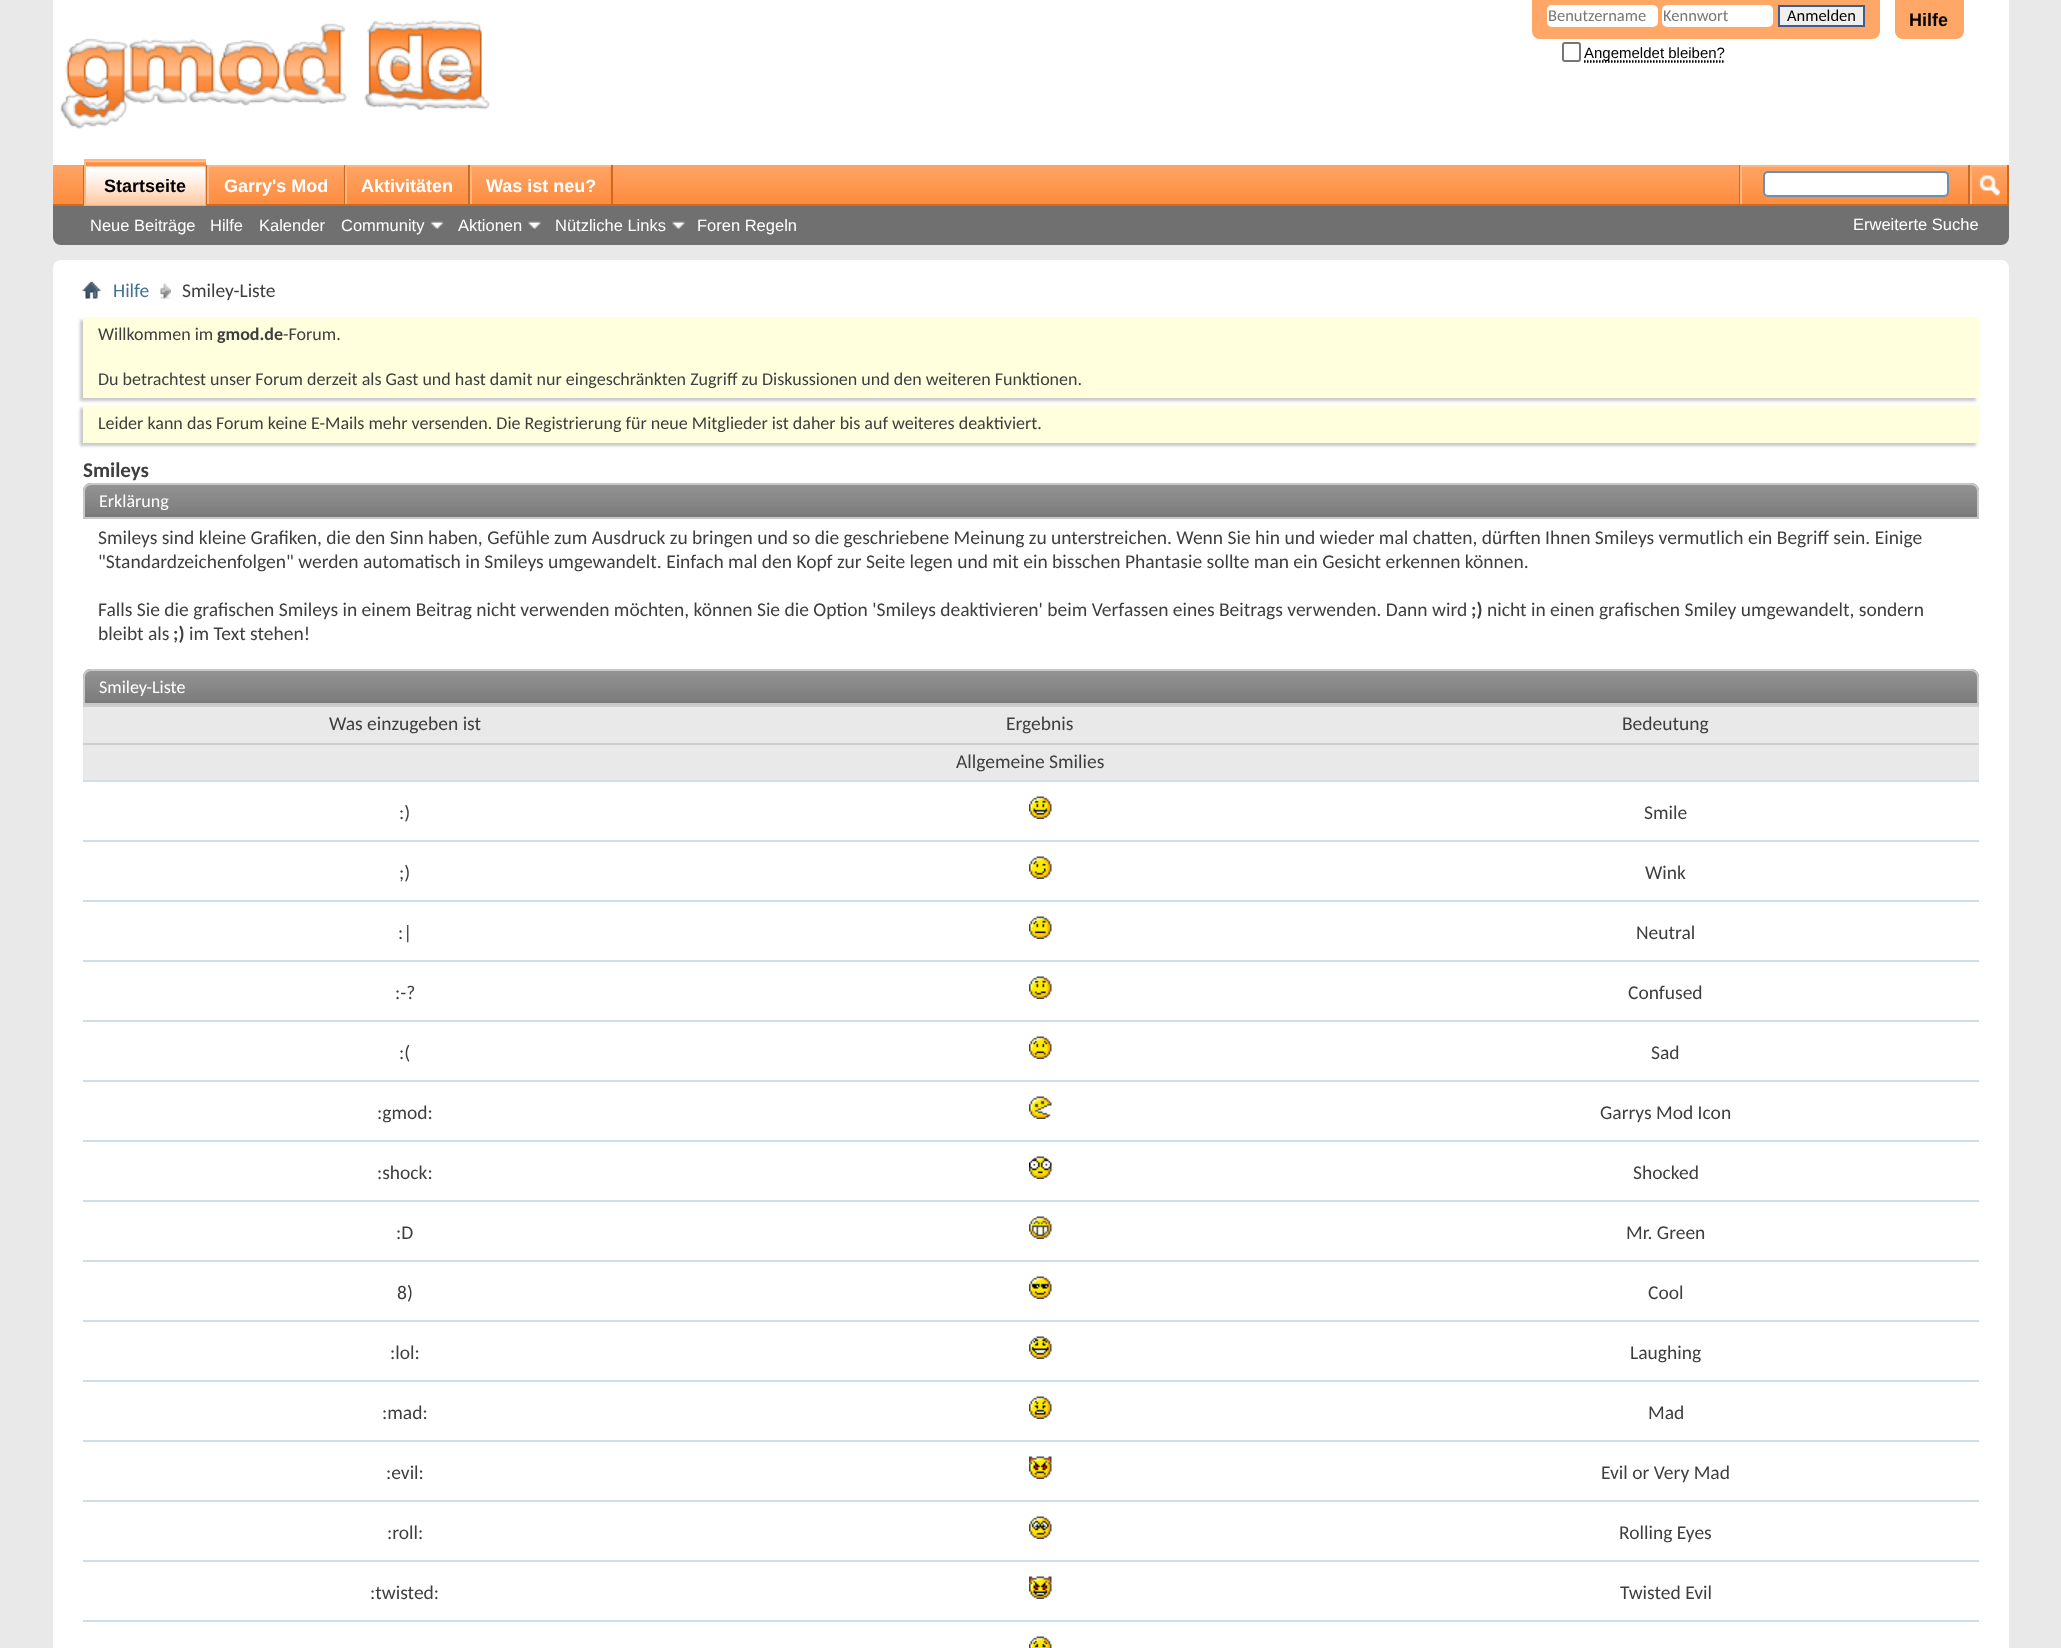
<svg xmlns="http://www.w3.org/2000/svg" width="2061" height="1648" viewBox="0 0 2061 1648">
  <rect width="100%" height="100%" fill="rgb(233,233,233)"/>
  <path d="M53 0H2009V237C2009 241.5 2005.5 245 2001 245H61C56.5 245 53 241.5 53 237Z" fill="rgb(255,255,255)"/>
  <image x="60" y="20" width="430" height="109" href="pic1.png"/>
  <path d="M1532 0H1880V31C1880 35.5 1876.5 39 1872 39H1540C1535.5 39 1532 35.5 1532 31Z" fill="rgb(255,167,102)"/>
  <rect x="1547" y="5" width="111" height="22" rx="5" fill="rgb(255,255,255)"/>
  <text x="1548" y="21" font-family="Carlito" font-size="16.5" fill="rgb(119,119,119)">Benutzername</text>
  <rect x="1662" y="5" width="111" height="22" rx="5" fill="rgb(255,255,255)"/>
  <text x="1663" y="21" font-family="Carlito" font-size="16.5" fill="rgb(119,119,119)">Kennwort</text>
  <rect x="1779" y="6" width="85" height="20" fill="rgb(239,239,239)" stroke="rgb(65,93,141)" stroke-width="2"/>
  <text x="1787" y="21" font-family="Carlito" font-size="16.5" fill="rgb(0,0,0)">Anmelden</text>
  <rect x="1563" y="43" width="17" height="18" rx="2" fill="none" stroke="rgb(118,118,118)" stroke-width="2"/>
  <path d="M1584 62H1725" fill="none" stroke="rgb(0,0,0)" stroke-width="1.5" stroke-dasharray="1.5 1.5"/>
  <path d="M1584 61H1725" fill="none" stroke="rgb(0,0,0)" stroke-width="1.5" stroke-dasharray="1.5 1.5"/>
  <text x="1584" y="58" font-family="Liberation Sans" font-size="15" fill="rgb(0,0,0)">Angemeldet bleiben?</text>
  <path d="M1895 0H1964V31C1964 35.5 1960.5 39 1956 39H1903C1898.5 39 1895 35.5 1895 31Z" fill="rgb(255,167,102)"/>
  <text x="1909" y="26" font-family="Liberation Sans" font-size="18" font-weight="bold" fill="rgb(0,0,0)">Hilfe</text>
  <path d="M53 165H2009V237C2009 241.5 2005.5 245 2001 245H61C56.5 245 53 241.5 53 237Z" fill="rgb(112,112,112)"/>
  <rect x="53" y="165" width="1954" height="39" fill="rgb(254,143,66)"/>
  <image x="53" y="165" width="1954" height="30" href="pic2.png"/>
  <rect x="206" y="165" width="1" height="39" fill="rgb(206,105,31)"/>
  <rect x="83" y="165" width="1" height="39" fill="rgb(206,105,31)"/>
  <rect x="344" y="165" width="1" height="41" fill="rgb(206,105,31)"/>
  <rect x="207" y="165" width="137" height="2" fill="rgb(255,183,130)"/>
  <rect x="207" y="165" width="2" height="41" fill="rgb(255,183,130)"/>
  <rect x="468" y="165" width="2" height="41" fill="rgb(206,105,31)"/>
  <rect x="345" y="165" width="123" height="2" fill="rgb(255,183,130)"/>
  <rect x="345" y="165" width="2" height="41" fill="rgb(255,183,130)"/>
  <rect x="611" y="165" width="2" height="41" fill="rgb(206,105,31)"/>
  <rect x="472" y="167" width="139" height="28" fill="rgb(254,143,66)"/>
  <image x="469" y="166" width="142" height="31" href="pic6.png"/>
  <rect x="470" y="165" width="141" height="2" fill="rgb(255,183,130)"/>
  <rect x="470" y="165" width="2" height="41" fill="rgb(255,183,130)"/>
  <rect x="53" y="204" width="1956" height="2" fill="rgb(206,105,31)"/>
  <rect x="86" y="161" width="120" height="45" fill="rgb(254,143,66)"/>
  <image x="86" y="161" width="120" height="45" href="pic3.png"/>
  <rect x="84" y="159" width="122" height="2" fill="rgb(255,183,130)"/>
  <rect x="84" y="159" width="2" height="47" fill="rgb(255,183,130)"/>
  <text x="104" y="192" font-family="Liberation Sans" font-size="18" font-weight="bold" fill="rgb(0,0,0)">Startseite</text>
  <rect x="209" y="167" width="135" height="28" fill="rgb(254,143,66)"/>
  <image x="209" y="167" width="135" height="30" href="pic4.png"/>
  <text x="224" y="192" font-family="Liberation Sans" font-size="18" font-weight="bold" fill="rgb(255,255,255)">Garry's Mod</text>
  <rect x="347" y="167" width="121" height="28" fill="rgb(254,143,66)"/>
  <image x="347" y="167" width="121" height="30" href="pic5.png"/>
  <g font-family="Liberation Sans" font-size="18" font-weight="bold" fill="rgb(255,255,255)">
    <text x="361" y="192">Aktivitäten</text>
    <text x="486" y="192">Was ist neu?</text>
  </g>
  <g font-family="Liberation Sans" font-size="16.5" fill="rgb(255,255,255)">
    <text x="90" y="231">Neue Beiträge</text>
    <text x="210" y="231">Hilfe</text>
    <text x="259" y="231">Kalender</text>
    <text x="341" y="231">Community</text>
  </g>
  <image x="430" y="221" width="14" height="8" href="pic7.png"/>
  <text x="458" y="231" font-family="Liberation Sans" font-size="16.5" fill="rgb(255,255,255)">Aktionen</text>
  <image x="528" y="221" width="14" height="8" href="pic8.png"/>
  <text x="555" y="231" font-family="Liberation Sans" font-size="16.5" fill="rgb(255,255,255)">Nützliche Links</text>
  <image x="672" y="221" width="14" height="8" href="pic9.png"/>
  <text x="697" y="231" font-family="Liberation Sans" font-size="16.5" fill="rgb(255,255,255)">Foren Regeln</text>
  <rect x="1739" y="165" width="1" height="39" fill="rgb(206,105,31)"/>
  <rect x="1740" y="165" width="228" height="2" fill="rgb(255,183,130)"/>
  <rect x="1740" y="165" width="2" height="39" fill="rgb(255,183,130)"/>
  <rect x="1764" y="172" width="184" height="24" rx="4" fill="rgb(255,255,255)" stroke="rgb(107,145,171)" stroke-width="2"/>
  <rect x="2007" y="165" width="2" height="39" fill="rgb(206,105,31)"/>
  <rect x="1968" y="165" width="2" height="39" fill="rgb(206,105,31)"/>
  <rect x="1970" y="165" width="37" height="2" fill="rgb(255,183,130)"/>
  <rect x="1970" y="165" width="2" height="39" fill="rgb(255,183,130)"/>
  <image x="1979" y="175" width="21" height="22" href="pic10.png"/>
  <text x="1853" y="230" font-family="Liberation Sans" font-size="16.5" fill="rgb(255,255,255)">Erweiterte Suche</text>
  <rect x="53" y="260" width="1956" height="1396" rx="8" fill="rgb(255,255,255)"/>
  <image x="82" y="281" width="19" height="18" href="pic11.png"/>
  <image x="160" y="283" width="11" height="16" href="pic12.png"/>
  <text x="113" y="297" font-family="Carlito" font-size="19.5" fill="rgb(65,115,148)">Hilfe</text>
  <text x="182" y="297" font-family="Carlito" font-size="19.5" fill="rgb(62,62,62)">Smiley-Liste</text>
  <rect x="80" y="320" width="1896" height="81" fill="rgb(200,200,200)" filter="blur(1.5px)"/>
  <rect x="83" y="317" width="1896" height="81" fill="rgb(255,255,222)"/>
  <text x="98" y="340" font-family="Carlito" font-size="18" fill="rgb(62,62,62)">Willkommen im</text>
  <text x="217" y="340" font-family="Carlito" font-size="18" font-weight="bold" fill="rgb(62,62,62)">gmod.de</text>
  <g font-family="Carlito" font-size="18" fill="rgb(62,62,62)">
    <text x="283" y="340">-Forum.</text>
    <text x="98" y="385">Du betrachtest unser Forum derzeit als Gast und hast damit nur eingeschränkten Zugriff zu Diskussionen und den weiteren Funktionen.</text>
  </g>
  <rect x="80" y="408" width="1896" height="38" fill="rgb(200,200,200)" filter="blur(1.5px)"/>
  <rect x="83" y="405" width="1896" height="38" fill="rgb(255,255,222)"/>
  <text x="98" y="429" font-family="Carlito" font-size="18" fill="rgb(62,62,62)">Leider kann das Forum keine E-Mails mehr versenden. Die Registrierung für neue Mitglieder ist daher bis auf weiteres deaktiviert.</text>
  <text x="83" y="477" font-family="Carlito" font-size="21" font-weight="bold" fill="rgb(62,62,62)">Smileys</text>
  <path d="M91 483H1971C1975.5 483 1979 486.5 1979 491V519H83V491C83 486.5 86.5 483 91 483Z" fill="rgb(122,122,122)"/>
  <image x="83" y="484" width="1896" height="30" href="pic13.png"/>
  <path d="M91 484H1971C1975 484 1978 487 1978 491V518H84V491C84 487 87 484 91 484Z" fill="none" stroke="rgb(200,200,200)" stroke-width="2"/>
  <text x="99" y="507" font-family="Carlito" font-size="18" fill="rgb(255,255,255)">Erklärung</text>
  <g font-family="Carlito" font-size="19.5" fill="rgb(62,62,62)">
    <text>
      <tspan x="98" y="544">Smileys sind kleine Grafiken, die den Sinn haben, Gefühle zum Ausdruck zu bringen und so die geschriebene Meinung zu unterstreichen. Wenn Sie hin und wieder mal chatten, dürften Ihnen Smileys vermutlich ein Begriff sein. Einige</tspan>
      <tspan x="98" y="568">"Standardzeichenfolgen" werden automatisch in Smileys umgewandelt. Einfach mal den Kopf zur Seite legen und mit ein bisschen Phantasie sollte man ein Gesicht erkennen können.</tspan>
    </text>
    <text x="98" y="616">Falls Sie die grafischen Smileys in einem Beitrag nicht verwenden möchten, können Sie die Option 'Smileys deaktivieren' beim Verfassen eines Beitrags verwenden. Dann wird</text>
  </g>
  <text x="1471" y="616" font-family="Carlito" font-size="19.5" font-weight="bold" fill="rgb(62,62,62)">;)</text>
  <g font-family="Carlito" font-size="19.5" fill="rgb(62,62,62)">
    <text x="1487" y="616">nicht in einen grafischen Smiley umgewandelt, sondern</text>
    <text x="98" y="640">bleibt als</text>
  </g>
  <text x="173" y="640" font-family="Carlito" font-size="19.5" font-weight="bold" fill="rgb(62,62,62)">;)</text>
  <text x="189" y="640" font-family="Carlito" font-size="19.5" fill="rgb(62,62,62)">im Text stehen!</text>
  <path d="M91 669H1971C1975.5 669 1979 672.5 1979 677V705H83V677C83 672.5 86.5 669 91 669Z" fill="rgb(122,122,122)"/>
  <image x="83" y="670" width="1896" height="30" href="pic13.png"/>
  <path d="M91 670H1971C1975 670 1978 673 1978 677V704H84V677C84 673 87 670 91 670Z" fill="none" stroke="rgb(200,200,200)" stroke-width="2"/>
  <text x="99" y="693" font-family="Carlito" font-size="18" fill="rgb(255,255,255)">Smiley-Liste</text>
  <rect x="83" y="707" width="1896" height="36" fill="rgb(233,233,233)"/>
  <rect x="83" y="705" width="1896" height="2" fill="rgb(206,206,206)"/>
  <g font-family="Carlito" font-size="19.5" fill="rgb(62,62,62)">
    <text x="329" y="730">Was einzugeben ist</text>
    <text x="1006" y="730">Ergebnis</text>
    <text x="1622" y="730">Bedeutung</text>
  </g>
  <rect x="83" y="745" width="1896" height="35" fill="rgb(233,233,233)"/>
  <rect x="83" y="743" width="1896" height="2" fill="rgb(206,206,206)"/>
  <text x="956" y="768" font-family="Carlito" font-size="19.5" fill="rgb(62,62,62)">Allgemeine Smilies</text>
  <rect x="83" y="780" width="1896" height="2" fill="rgb(206,223,235)"/>
  <text x="399" y="819" font-family="Carlito" font-size="19.5" fill="rgb(62,62,62)">:)</text>
  <image x="1029" y="796" width="23" height="23" href="pic14.png"/>
  <text x="1644" y="819" font-family="Carlito" font-size="19.5" fill="rgb(62,62,62)">Smile</text>
  <rect x="83" y="840" width="1896" height="2" fill="rgb(206,223,235)"/>
  <text x="399" y="879" font-family="Carlito" font-size="19.5" fill="rgb(62,62,62)">;)</text>
  <image x="1029" y="856" width="23" height="23" href="pic15.png"/>
  <text x="1645" y="879" font-family="Carlito" font-size="19.5" fill="rgb(62,62,62)">Wink</text>
  <rect x="83" y="900" width="1896" height="2" fill="rgb(206,223,235)"/>
  <text x="398" y="939" font-family="Carlito" font-size="19.5" fill="rgb(62,62,62)">:|</text>
  <image x="1029" y="916" width="23" height="23" href="pic16.png"/>
  <text x="1636" y="939" font-family="Carlito" font-size="19.5" fill="rgb(62,62,62)">Neutral</text>
  <rect x="83" y="960" width="1896" height="2" fill="rgb(206,223,235)"/>
  <text x="395" y="999" font-family="Carlito" font-size="19.5" fill="rgb(62,62,62)">:-?</text>
  <image x="1029" y="976" width="23" height="23" href="pic17.png"/>
  <text x="1628" y="999" font-family="Carlito" font-size="19.5" fill="rgb(62,62,62)">Confused</text>
  <rect x="83" y="1020" width="1896" height="2" fill="rgb(206,223,235)"/>
  <text x="399" y="1059" font-family="Carlito" font-size="19.5" fill="rgb(62,62,62)">:(</text>
  <image x="1029" y="1036" width="23" height="23" href="pic18.png"/>
  <text x="1651" y="1059" font-family="Carlito" font-size="19.5" fill="rgb(62,62,62)">Sad</text>
  <rect x="83" y="1080" width="1896" height="2" fill="rgb(206,223,235)"/>
  <text x="377" y="1119" font-family="Carlito" font-size="19.5" fill="rgb(62,62,62)">:gmod:</text>
  <image x="1029" y="1096" width="23" height="23" href="pic19.png"/>
  <text x="1600" y="1119" font-family="Carlito" font-size="19.5" fill="rgb(62,62,62)">Garrys Mod Icon</text>
  <rect x="83" y="1140" width="1896" height="2" fill="rgb(206,223,235)"/>
  <text x="377" y="1179" font-family="Carlito" font-size="19.5" fill="rgb(62,62,62)">:shock:</text>
  <image x="1029" y="1156" width="23" height="23" href="pic20.png"/>
  <text x="1633" y="1179" font-family="Carlito" font-size="19.5" fill="rgb(62,62,62)">Shocked</text>
  <rect x="83" y="1200" width="1896" height="2" fill="rgb(206,223,235)"/>
  <text x="396" y="1239" font-family="Carlito" font-size="19.5" fill="rgb(62,62,62)">:D</text>
  <image x="1029" y="1216" width="23" height="23" href="pic21.png"/>
  <text x="1626" y="1239" font-family="Carlito" font-size="19.5" fill="rgb(62,62,62)">Mr. Green</text>
  <rect x="83" y="1260" width="1896" height="2" fill="rgb(206,223,235)"/>
  <text x="397" y="1299" font-family="Carlito" font-size="19.5" fill="rgb(62,62,62)">8)</text>
  <image x="1029" y="1276" width="23" height="23" href="pic22.png"/>
  <text x="1648" y="1299" font-family="Carlito" font-size="19.5" fill="rgb(62,62,62)">Cool</text>
  <rect x="83" y="1320" width="1896" height="2" fill="rgb(206,223,235)"/>
  <text x="390" y="1359" font-family="Carlito" font-size="19.5" fill="rgb(62,62,62)">:lol:</text>
  <image x="1029" y="1336" width="23" height="23" href="pic23.png"/>
  <text x="1630" y="1359" font-family="Carlito" font-size="19.5" fill="rgb(62,62,62)">Laughing</text>
  <rect x="83" y="1380" width="1896" height="2" fill="rgb(206,223,235)"/>
  <text x="382" y="1419" font-family="Carlito" font-size="19.5" fill="rgb(62,62,62)">:mad:</text>
  <image x="1029" y="1396" width="23" height="23" href="pic24.png"/>
  <text x="1648" y="1419" font-family="Carlito" font-size="19.5" fill="rgb(62,62,62)">Mad</text>
  <rect x="83" y="1440" width="1896" height="2" fill="rgb(206,223,235)"/>
  <text x="386" y="1479" font-family="Carlito" font-size="19.5" fill="rgb(62,62,62)">:evil:</text>
  <image x="1029" y="1456" width="23" height="23" href="pic25.png"/>
  <text x="1601" y="1479" font-family="Carlito" font-size="19.5" fill="rgb(62,62,62)">Evil or Very Mad</text>
  <rect x="83" y="1500" width="1896" height="2" fill="rgb(206,223,235)"/>
  <text x="387" y="1539" font-family="Carlito" font-size="19.5" fill="rgb(62,62,62)">:roll:</text>
  <image x="1029" y="1516" width="23" height="23" href="pic26.png"/>
  <text x="1619" y="1539" font-family="Carlito" font-size="19.5" fill="rgb(62,62,62)">Rolling Eyes</text>
  <rect x="83" y="1560" width="1896" height="2" fill="rgb(206,223,235)"/>
  <text x="370" y="1599" font-family="Carlito" font-size="19.5" fill="rgb(62,62,62)">:twisted:</text>
  <image x="1029" y="1576" width="23" height="23" href="pic27.png"/>
  <text x="1620" y="1599" font-family="Carlito" font-size="19.5" fill="rgb(62,62,62)">Twisted Evil</text>
  <rect x="83" y="1620" width="1896" height="2" fill="rgb(206,223,235)"/>
  <image x="1029" y="1636" width="23" height="12" href="pic28.png"/>
</svg>
